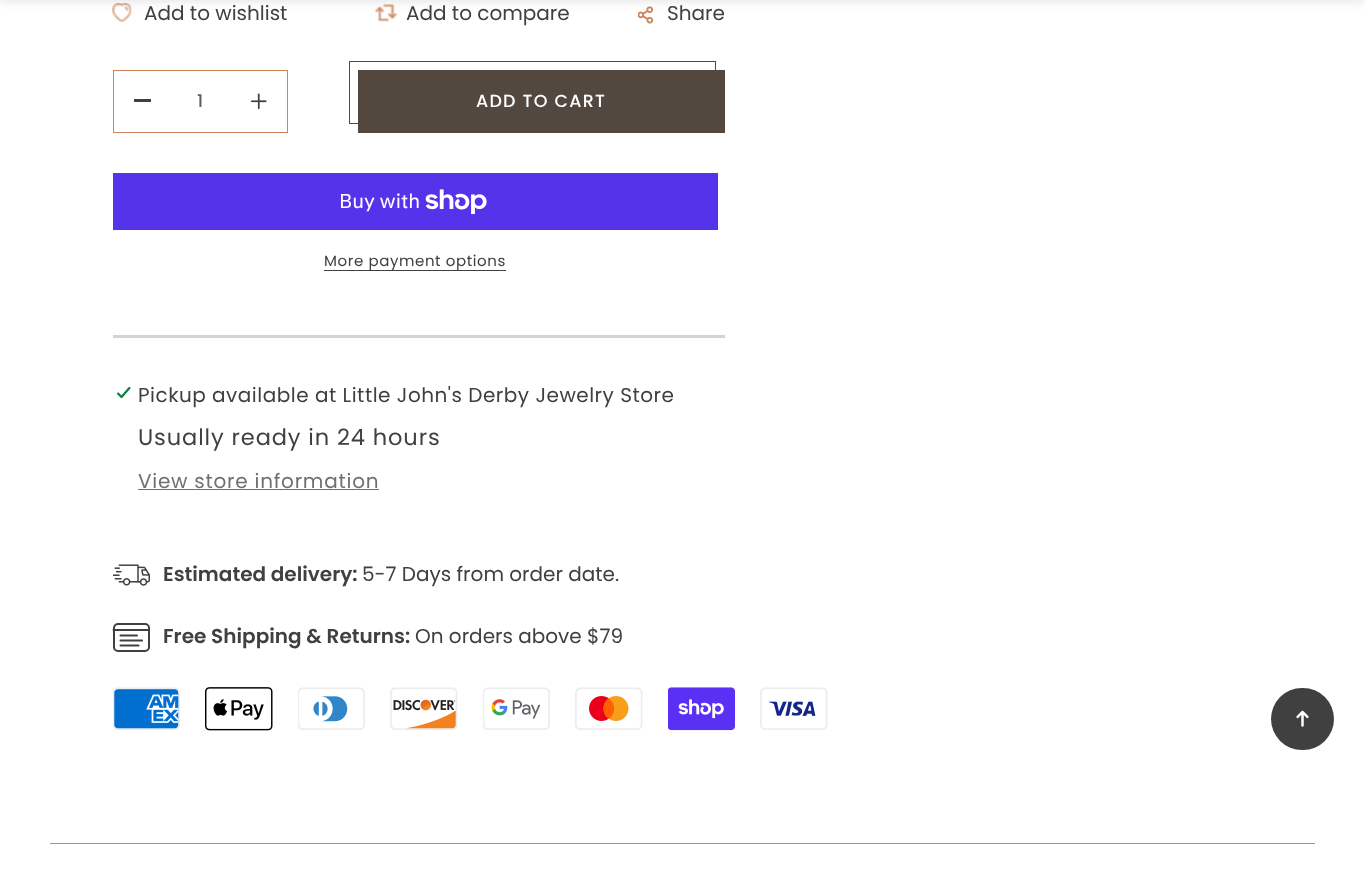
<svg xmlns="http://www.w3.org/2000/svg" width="1365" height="874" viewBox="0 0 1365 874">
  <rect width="100%" height="100%" fill="rgb(255,255,255)"/>
  <image x="112" y="3" width="20" height="20" href="pic1.png"/>
  <image x="375" y="4" width="23" height="18" href="pic2.png"/>
  <image x="638" y="6" width="16" height="18" href="pic3.png"/>
  <rect x="0" y="-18" width="1365" height="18" fill="rgba(26,26,26,0.15)" filter="blur(6px)"/>
  <g font-family="Poppins" font-size="20" fill="rgb(64,64,64)">
    <text x="144" y="20">Add to wishlist</text>
    <text x="406" y="20">Add to compare</text>
    <text x="667" y="20">Share</text>
  </g>
  <rect x="113" y="335" width="612" height="3" fill="rgb(212,212,212)"/>
  <rect x="134" y="99" width="17" height="3" fill="rgb(64,64,64)"/>
  <image x="250" y="93" width="17" height="17" href="pic4.png"/>
  <rect x="113.5" y="70.5" width="174" height="62" fill="none" stroke="rgb(205,134,92)"/>
  <text x="197" y="107" font-family="Poppins" font-size="17.5" font-weight="500" fill="rgb(93,93,93)">1</text>
  <rect x="358" y="70" width="367" height="63" fill="rgb(83,72,63)"/>
  <rect x="349.5" y="61.5" width="366" height="62" fill="none" stroke="rgb(83,72,63)"/>
  <text x="476" y="107" font-family="Poppins" font-size="17.5" font-weight="500" letter-spacing="1.25" fill="rgb(255,255,255)">ADD TO CART</text>
  <rect x="113" y="173" width="605" height="57" fill="rgb(84,51,235)"/>
  <text x="339" y="208" font-family="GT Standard" font-size="20" fill="rgb(255,255,255)">Buy with</text>
  <image x="425" y="189" width="62" height="25" href="pic5.png"/>
  <text x="324" y="266" font-family="Poppins" font-size="15" letter-spacing="0.6" fill="rgb(64,64,64)">More payment options</text>
  <rect x="324" y="270" width="182" height="1" fill="rgb(64,64,64)"/>
  <image x="116" y="386" width="15" height="13" href="pic6.png"/>
  <text x="138" y="402" font-family="Poppins" font-size="20" letter-spacing="0.5" fill="rgb(64,64,64)">Pickup available at Little John's Derby Jewelry Store</text>
  <text x="138" y="445" font-family="Poppins" font-size="22.5" letter-spacing="0.9" fill="rgb(64,64,64)">Usually ready in 24 hours</text>
  <text x="138" y="488" font-family="Poppins" font-size="20" letter-spacing="0.75" fill="rgb(112,112,112)">View store information</text>
  <rect x="138" y="489" width="241" height="1" fill="rgb(112,112,112)"/>
  <image x="113" y="564" width="37" height="22" href="pic7.png"/>
  <text x="163" y="581" font-family="Poppins" font-size="20" font-weight="600" fill="rgb(64,64,64)">Estimated delivery:</text>
  <text x="362" y="581" font-family="Poppins" font-size="20" fill="rgb(64,64,64)">5-7 Days from order date.</text>
  <rect x="114" y="624" width="35" height="27" rx="4" fill="none" stroke="rgb(64,64,64)" stroke-width="2"/>
  <text x="163" y="643" font-family="Poppins" font-size="20" font-weight="600" fill="rgb(64,64,64)">Free Shipping &amp; Returns:</text>
  <text x="415" y="643" font-family="Poppins" font-size="20" fill="rgb(64,64,64)">On orders above $79</text>
  <path d="M113.5 630H149M120.5 635.5H137M120.5 640.5H142M120.5 645.5H138.5" fill="none" stroke="rgb(64,64,64)" stroke-width="2" stroke-linecap="round"/>
  <image x="113" y="687" width="67" height="43" href="pic8.png"/>
  <image x="205" y="687" width="68" height="44" href="pic9.png"/>
  <image x="298" y="687" width="67" height="43" href="pic10.png"/>
  <image x="390" y="687" width="68" height="43" href="pic11.png"/>
  <image x="483" y="687" width="67" height="43" href="pic12.png"/>
  <image x="575" y="687" width="68" height="43" href="pic13.png"/>
  <image x="668" y="687" width="67" height="44" href="pic14.png"/>
  <image x="760" y="687" width="68" height="43" href="pic15.png"/>
  <rect x="50" y="843" width="1265" height="1" fill="rgb(205,134,92)"/>
  <rect x="1271" y="688" width="63" height="62" rx="31" fill="rgb(64,64,64)"/>
  <image x="1296" y="710" width="13" height="17" href="pic16.png"/>
</svg>
